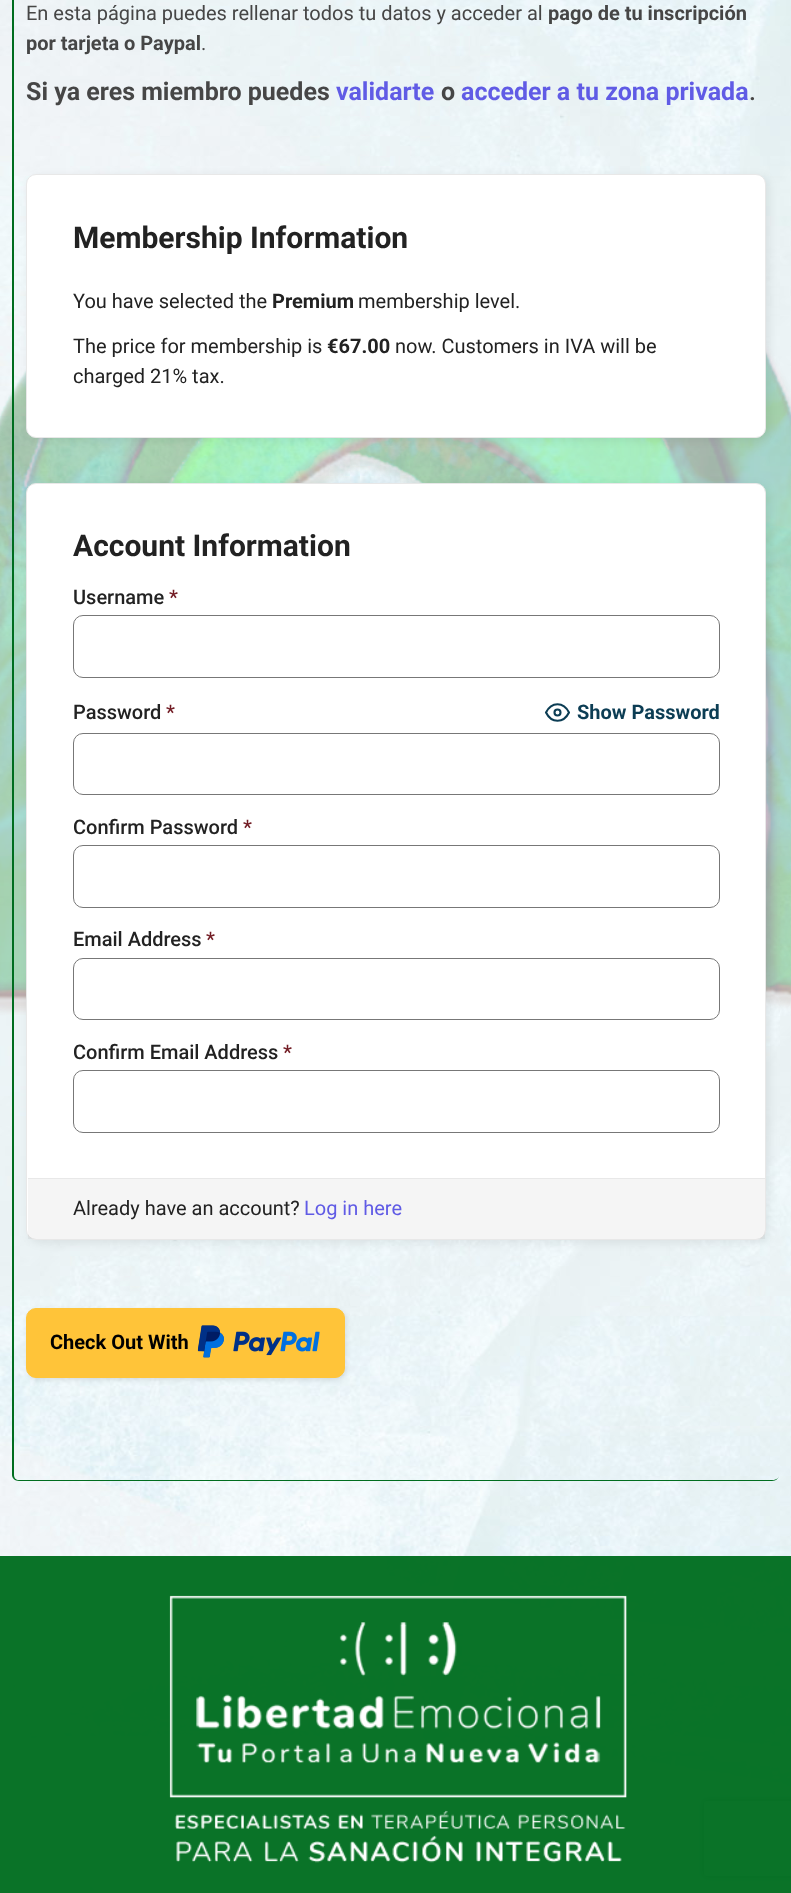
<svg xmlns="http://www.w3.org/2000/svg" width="791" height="1893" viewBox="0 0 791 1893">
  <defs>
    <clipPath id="clip1"><path d="M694 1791H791V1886H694ZM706.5 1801H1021.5C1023 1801 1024 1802 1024 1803.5V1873.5C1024 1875 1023 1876 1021.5 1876H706.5C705 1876 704 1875 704 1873.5V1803.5C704 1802 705 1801 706.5 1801Z" clip-rule="evenodd"/></clipPath>
  </defs>
  <rect width="100%" height="100%" fill="rgb(255,255,255)"/>
  <image x="0" y="0" width="791" height="1893" href="pic1.png"/>
  <image x="0" y="340" width="791" height="675" href="pic2.png"/>
  <path d="M12-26H779V1475C779 1478 776 1481 772 1481H19C15 1481 12 1478 12 1475ZM14-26H779V1475C779 1478 776 1480 772 1480H19C16 1480 14 1478 14 1475Z" fill="rgb(0,109,31)" fill-rule="evenodd"/>
  <text x="26" y="20" font-family="Roboto" font-size="20" fill="rgb(70,70,70)">En esta página puedes rellenar todos tu datos y acceder al</text>
  <g font-family="Roboto" font-size="20" font-weight="bold" fill="rgb(70,70,70)">
    <text x="548" y="20">pago de tu inscripción</text>
    <text x="26" y="50">por tarjeta o Paypal</text>
  </g>
  <text x="201" y="50" font-family="Roboto" font-size="20" fill="rgb(70,70,70)">.</text>
  <text x="26" y="100" font-family="Roboto" font-size="25" font-weight="bold" fill="rgb(70,70,70)">Si ya eres miembro puedes</text>
  <text x="336" y="100" font-family="Roboto" font-size="25" font-weight="bold" fill="rgb(96,91,229)">validarte</text>
  <text x="441" y="100" font-family="Roboto" font-size="25" font-weight="bold" fill="rgb(70,70,70)">o</text>
  <text x="461" y="100" font-family="Roboto" font-size="25" font-weight="bold" fill="rgb(96,91,229)">acceder a tu zona privada</text>
  <text x="749" y="100" font-family="Roboto" font-size="25" font-weight="500" fill="rgb(70,70,70)">.</text>
  <rect x="29" y="176" width="740" height="264" rx="10" fill="rgba(0,0,0,0.07)" filter="blur(4.5px)"/>
  <rect x="26.5" y="174.5" width="739" height="263" rx="9.5" fill="rgb(255,255,255)" stroke="rgb(232,232,232)"/>
  <text x="73" y="248" font-family="Roboto" font-size="30" font-weight="bold" fill="rgb(34,34,34)">Membership Information</text>
  <text x="73" y="308" font-family="Roboto" font-size="20" fill="rgb(34,34,34)">You have selected the</text>
  <text x="272" y="308" font-family="Roboto" font-size="20" font-weight="bold" fill="rgb(34,34,34)">Premium</text>
  <g font-family="Roboto" font-size="20" fill="rgb(34,34,34)">
    <text x="358" y="308">membership level.</text>
    <text x="73" y="353">The price for membership is</text>
  </g>
  <text x="327" y="353" font-family="Roboto" font-size="20" font-weight="bold" fill="rgb(34,34,34)">€67.00</text>
  <g font-family="Roboto" font-size="20" fill="rgb(34,34,34)">
    <text x="395" y="353">now. Customers in IVA will be</text>
    <text x="73" y="383">charged 21% tax.</text>
  </g>
  <rect x="29" y="485" width="740" height="758" rx="10" fill="rgba(0,0,0,0.07)" filter="blur(4.5px)"/>
  <rect x="26.5" y="483.5" width="739" height="756" rx="9.5" fill="rgb(255,255,255)" stroke="rgb(232,232,232)"/>
  <text x="73" y="556" font-family="Roboto" font-size="30" font-weight="bold" fill="rgb(34,34,34)">Account Information</text>
  <text x="73" y="604" font-family="Roboto" font-size="20" font-weight="500" fill="rgb(34,34,34)">Username</text>
  <text x="169" y="604" font-family="Roboto" font-size="20" font-weight="500" fill="rgb(114,28,36)">*</text>
  <rect x="73.5" y="615.5" width="646" height="62" rx="9.5" fill="none" stroke="rgb(119,119,119)"/>
  <text x="73" y="719" font-family="Roboto" font-size="20" font-weight="500" fill="rgb(34,34,34)">Password</text>
  <text x="166" y="719" font-family="Roboto" font-size="20" font-weight="500" fill="rgb(114,28,36)">*</text>
  <path d="M546 712.5C551.5 701.5 563.5 701.5 569 712.5C563.5 723.5 551.5 723.5 546 712.5Z" fill="none" stroke="rgb(12,61,84)" stroke-width="2.1" stroke-linecap="round" stroke-linejoin="round"/>
  <circle cx="557.5" cy="712.5" r="3" fill="none" stroke="rgb(12,61,84)" stroke-width="2.1"/>
  <text x="577" y="719" font-family="Roboto" font-size="20" font-weight="bold" fill="rgb(12,61,84)">Show Password</text>
  <rect x="73.5" y="733.5" width="646" height="61" rx="9.5" fill="none" stroke="rgb(119,119,119)"/>
  <text x="73" y="834" font-family="Roboto" font-size="20" font-weight="500" fill="rgb(34,34,34)">Confirm Password</text>
  <text x="243" y="834" font-family="Roboto" font-size="20" font-weight="500" fill="rgb(114,28,36)">*</text>
  <rect x="73.5" y="845.5" width="646" height="62" rx="9.5" fill="none" stroke="rgb(119,119,119)"/>
  <text x="73" y="946" font-family="Roboto" font-size="20" font-weight="500" fill="rgb(34,34,34)">Email Address</text>
  <text x="206" y="946" font-family="Roboto" font-size="20" font-weight="500" fill="rgb(114,28,36)">*</text>
  <rect x="73.5" y="958.5" width="646" height="61" rx="9.5" fill="none" stroke="rgb(119,119,119)"/>
  <text x="73" y="1059" font-family="Roboto" font-size="20" font-weight="500" fill="rgb(34,34,34)">Confirm Email Address</text>
  <text x="283" y="1059" font-family="Roboto" font-size="20" font-weight="500" fill="rgb(114,28,36)">*</text>
  <rect x="73.5" y="1070.5" width="646" height="62" rx="9.5" fill="none" stroke="rgb(119,119,119)"/>
  <rect x="28" y="1179" width="737" height="60" fill="rgba(0,0,0,0.04)"/>
  <rect x="28" y="1178" width="737" height="1" fill="rgb(232,232,232)"/>
  <text x="73" y="1215" font-family="Roboto" font-size="20" fill="rgb(34,34,34)">Already have an account?</text>
  <text x="304" y="1215" font-family="Roboto" font-size="20" fill="rgb(96,91,229)">Log in here</text>
  <rect x="28" y="1310" width="318" height="70" rx="10" fill="rgba(0,0,0,0.1)" filter="blur(2.5px)"/>
  <rect x="26.5" y="1308.5" width="318" height="69" rx="9.5" fill="rgb(255,196,57)" stroke="rgb(255,196,57)"/>
  <text x="50" y="1349" font-family="Roboto" font-size="20" font-weight="bold" fill="rgb(0,0,0)">Check Out With</text>
  <image x="197" y="1325" width="123" height="33" href="pic3.png"/>
  <g clip-path="url(#clip1)">
    <rect x="704" y="1801" width="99" height="75" rx="2.5" fill="rgb(128,128,128)" filter="blur(3px)"/>
  </g>
  <rect x="0" y="1556" width="791" height="337" fill="rgba(0,109,31,0.96)"/>
  <image x="169" y="1595" width="458" height="268" href="pic4.png"/>
</svg>
